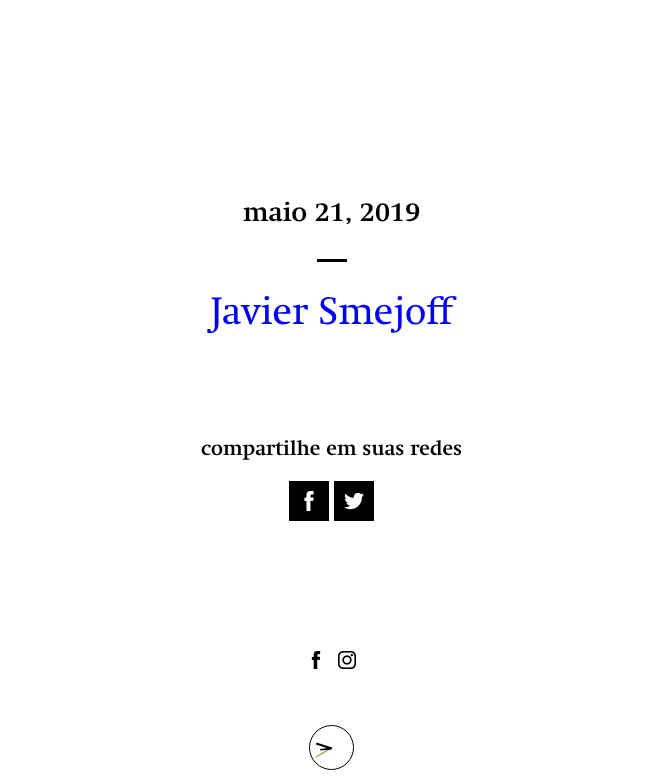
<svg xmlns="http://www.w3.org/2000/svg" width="663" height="779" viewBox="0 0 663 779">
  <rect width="100%" height="100%" fill="rgb(255,255,255)"/>
  <text x="243" y="221" font-family="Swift" font-size="26" font-weight="bold" fill="rgb(0,0,0)">maio 21, 2019</text>
  <rect x="317" y="259" width="30" height="3" fill="rgb(0,0,0)"/>
  <text x="210" y="324" font-family="Swift" font-size="38" fill="rgb(0,0,255)">Javier Smejoff</text>
  <text x="201" y="455" font-family="Swift" font-size="20" font-weight="bold" fill="rgb(0,0,0)">compartilhe em suas redes</text>
  <rect x="289" y="481" width="40" height="40" fill="rgb(0,0,0)"/>
  <image x="304" y="491" width="10" height="20" href="pic1.png"/>
  <rect x="334" y="481" width="40" height="40" fill="rgb(0,0,0)"/>
  <image x="344" y="492" width="20" height="18" href="pic2.png"/>
  <image x="311" y="651" width="10" height="18" href="pic3.png"/>
  <image x="338" y="651" width="18" height="18" href="pic4.png"/>
  <circle cx="331.5" cy="747.5" r="22" fill="none" stroke="rgb(0,0,0)"/>
  <path d="M332 748.5L316 757.5L315.5 756.5L331 747.5Z" fill="rgb(176,147,60)"/>
  <path d="M331 749.5L316 744.5L316.5 742.5L332 747.5Z" fill="rgb(0,0,0)"/>
  <path d="M331.5 749.5L320.5 750.5L320 749L331.5 747.5Z" fill="rgb(0,0,0)"/>
</svg>
